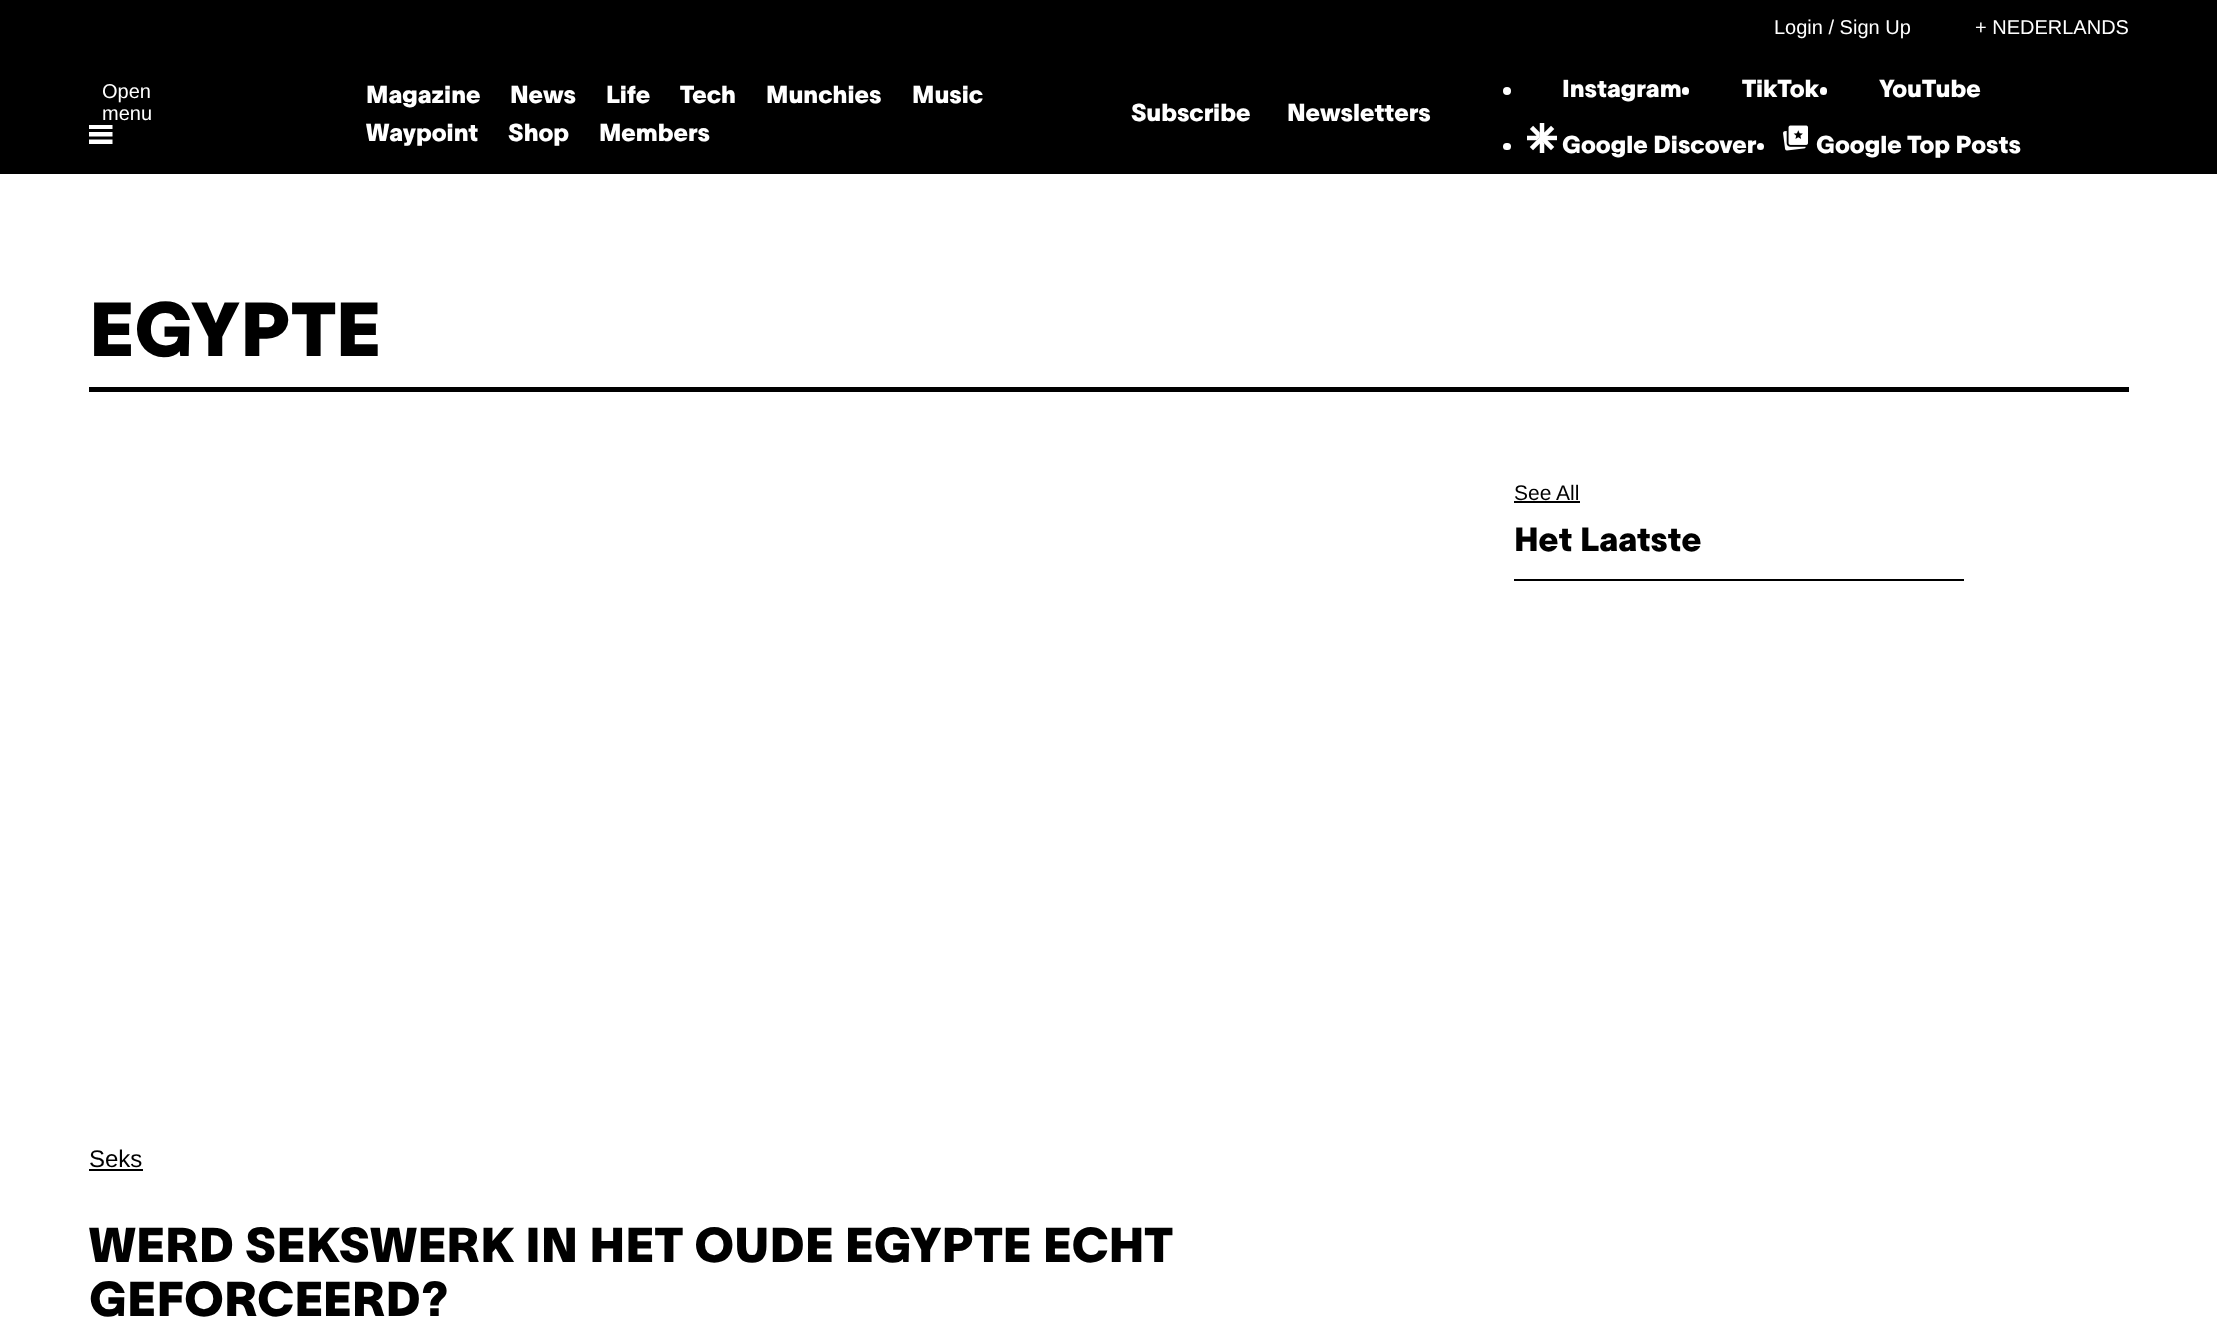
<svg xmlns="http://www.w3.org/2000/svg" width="2217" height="1339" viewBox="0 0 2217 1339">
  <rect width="100%" height="100%" fill="rgb(255,255,255)"/>
  <rect x="0" y="0" width="2217" height="174" fill="rgb(0,0,0)"/>
  <g font-family="Liberation Sans" font-size="20" fill="rgb(255,255,255)">
    <text x="1774" y="34">Login / Sign Up</text>
    <text x="1975" y="34">+ NEDERLANDS</text>
    <text>
      <tspan x="102" y="98">Open</tspan>
      <tspan x="102" y="120">menu</tspan>
    </text>
  </g>
  <image x="89" y="125" width="24" height="19" href="pic1.png"/>
  <g font-family="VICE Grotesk" font-size="24" font-weight="900" fill="rgb(255,255,255)">
    <text x="366" y="103">Magazine</text>
    <text x="510" y="103">News</text>
    <text x="606" y="103">Life</text>
    <text x="680" y="103">Tech</text>
    <text x="766" y="103">Munchies</text>
    <text x="912" y="103">Music</text>
    <text x="366" y="141">Waypoint</text>
    <text x="508" y="141">Shop</text>
    <text x="599" y="141">Members</text>
    <text x="1131" y="121">Subscribe</text>
    <text x="1287" y="121">Newsletters</text>
  </g>
  <circle cx="1507" cy="91" r="4" fill="rgb(255,255,255)"/>
  <text x="1562" y="97" font-family="VICE Grotesk" font-size="24" font-weight="900" fill="rgb(255,255,255)">Instagram</text>
  <rect x="1682" y="87" width="7" height="8" rx="3.5" fill="rgb(255,255,255)"/>
  <text x="1742" y="97" font-family="VICE Grotesk" font-size="24" font-weight="900" fill="rgb(255,255,255)">TikTok</text>
  <rect x="1820" y="87" width="7" height="8" rx="3.5" fill="rgb(255,255,255)"/>
  <text x="1879" y="97" font-family="VICE Grotesk" font-size="24" font-weight="900" fill="rgb(255,255,255)">YouTube</text>
  <rect x="1503" y="143" width="8" height="7" rx="3.5" fill="rgb(255,255,255)"/>
  <image x="1527" y="123" width="30" height="30" href="pic2.png"/>
  <text x="1562" y="153" font-family="VICE Grotesk" font-size="24" font-weight="900" fill="rgb(255,255,255)">Google Discover</text>
  <circle cx="1760.5" cy="146.5" r="3.5" fill="rgb(255,255,255)"/>
  <image x="1783" y="125" width="25" height="26" href="pic3.png"/>
  <text x="1816" y="153" font-family="VICE Grotesk" font-size="24" font-weight="900" fill="rgb(255,255,255)">Google Top Posts</text>
  <rect x="89" y="387" width="2040" height="5" fill="rgb(0,0,0)"/>
  <text x="89" y="356" font-family="VICE Grotesk" font-size="75" font-weight="900" fill="rgb(0,0,0)">EGYPTE</text>
  <rect x="1514" y="579" width="450" height="2" fill="rgb(0,0,0)"/>
  <text x="1514" y="500" font-family="Liberation Sans" font-size="21" fill="rgb(0,0,0)">See All</text>
  <rect x="1514" y="501" width="66" height="2" fill="rgb(0,0,0)"/>
  <text x="1514" y="551" font-family="VICE Grotesk" font-size="33" font-weight="900" fill="rgb(0,0,0)">Het Laatste</text>
  <text x="89" y="1167" font-family="Liberation Sans" font-size="24" fill="rgb(0,0,0)">Seks</text>
  <rect x="89" y="1169" width="54" height="2" fill="rgb(0,0,0)"/>
  <g font-family="VICE Grotesk" font-size="48" font-weight="900" fill="rgb(0,0,0)">
    <text>
      <tspan x="89" y="1262">WERD SEKSWERK IN HET OUDE EGYPTE ECHT</tspan>
      <tspan x="89" y="1316">GEFORCEERD?</tspan>
    </text>
  </g>
</svg>
